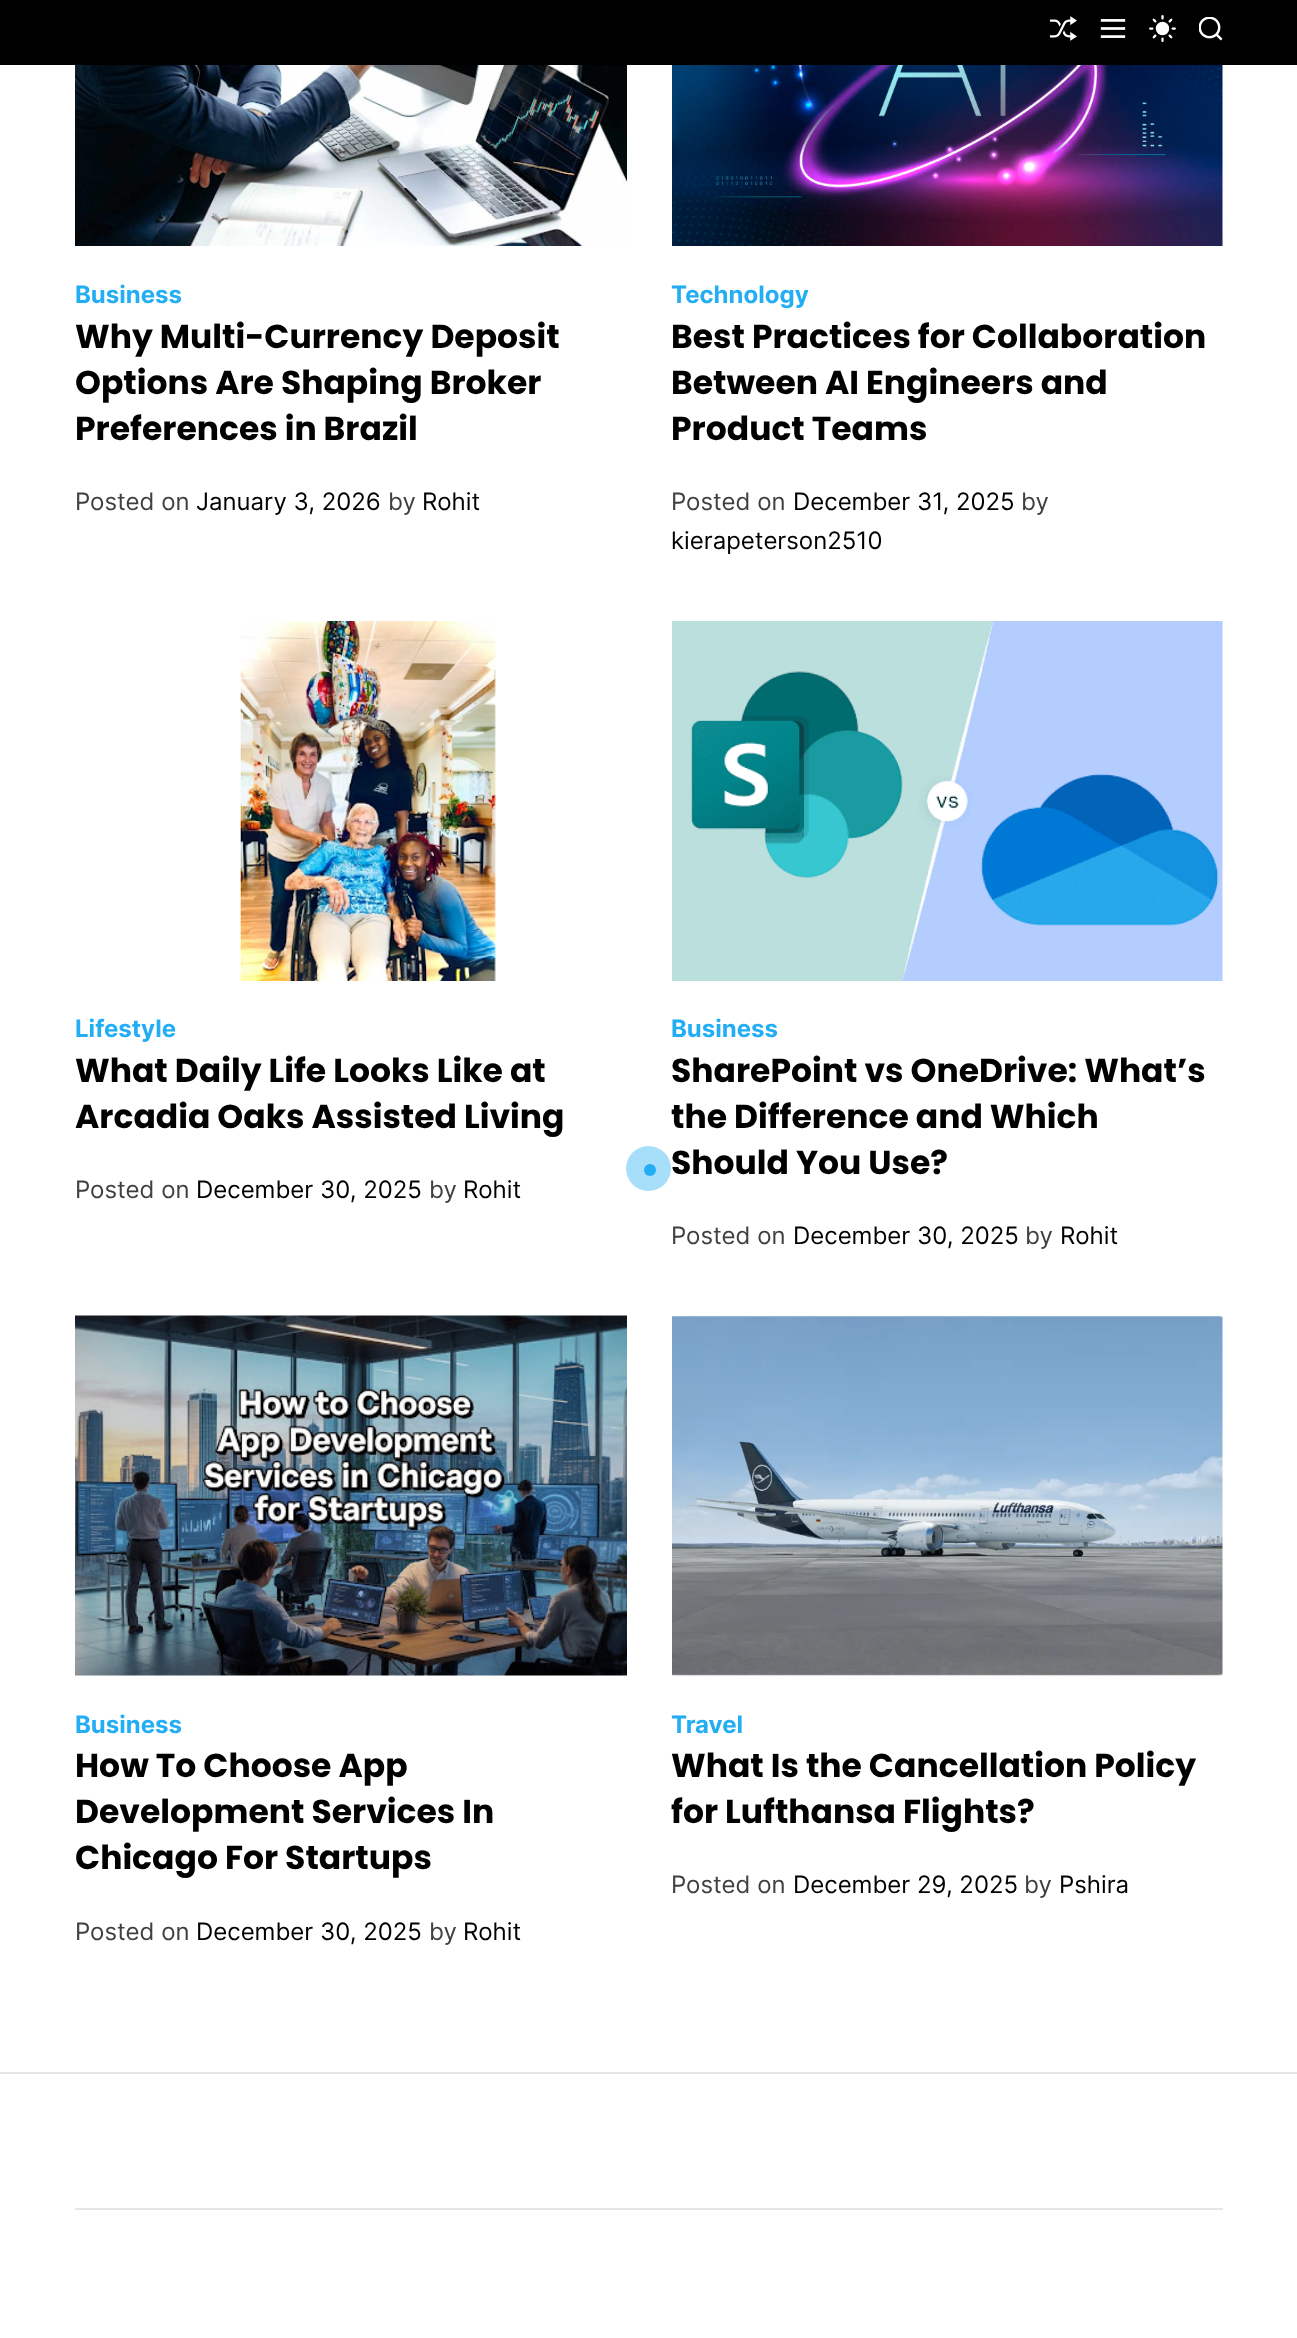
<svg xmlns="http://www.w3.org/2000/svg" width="1297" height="2338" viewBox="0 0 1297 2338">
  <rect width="100%" height="100%" fill="rgb(255,255,255)"/>
  <rect x="0" y="0" width="1297" height="65" fill="rgb(0,0,0)"/>
  <image x="1050" y="16" width="27" height="25" href="pic1.png"/>
  <image x="1100" y="19" width="26" height="19" href="pic2.png"/>
  <image x="1149" y="15" width="27" height="27" href="pic3.png"/>
  <image x="1199" y="17" width="24" height="24" href="pic4.png"/>
  <image x="75" y="65" width="552" height="181" href="pic5.png"/>
  <text x="75" y="303" font-family="Inter" font-size="24" font-weight="bold" fill="rgb(35,174,244)">Business</text>
  <g font-family="Poppins" font-size="33" font-weight="bold" fill="rgb(0,0,0)">
    <text>
      <tspan x="75" y="348">Why Multi-Currency Deposit</tspan>
      <tspan x="75" y="394">Options Are Shaping Broker</tspan>
      <tspan x="75" y="440">Preferences in Brazil</tspan>
    </text>
  </g>
  <text x="75" y="510" font-family="Inter" font-size="24" fill="rgb(64,64,64)">Posted on</text>
  <text x="196" y="510" font-family="Inter" font-size="24" fill="rgb(0,0,0)">January 3, 2026</text>
  <text x="388" y="510" font-family="Inter" font-size="24" fill="rgb(64,64,64)">by</text>
  <text x="422" y="510" font-family="Inter" font-size="24" fill="rgb(0,0,0)">Rohit</text>
  <image x="672" y="65" width="551" height="181" href="pic6.png"/>
  <text x="671" y="303" font-family="Inter" font-size="24" font-weight="bold" fill="rgb(35,174,244)">Technology</text>
  <g font-family="Poppins" font-size="33" font-weight="bold" fill="rgb(0,0,0)">
    <text>
      <tspan x="671" y="348">Best Practices for Collaboration</tspan>
      <tspan x="671" y="394">Between AI Engineers and</tspan>
      <tspan x="671" y="440">Product Teams</tspan>
    </text>
  </g>
  <text x="671" y="510" font-family="Inter" font-size="24" fill="rgb(64,64,64)">Posted on</text>
  <text x="793" y="510" font-family="Inter" font-size="24" fill="rgb(0,0,0)">December 31, 2025</text>
  <text x="1021" y="510" font-family="Inter" font-size="24" fill="rgb(64,64,64)">by</text>
  <text x="671" y="549" font-family="Inter" font-size="24" fill="rgb(0,0,0)">kierapeterson2510</text>
  <image x="240" y="621" width="256" height="360" href="pic7.png"/>
  <text x="75" y="1037" font-family="Inter" font-size="24" font-weight="bold" fill="rgb(35,174,244)">Lifestyle</text>
  <g font-family="Poppins" font-size="33" font-weight="bold" fill="rgb(0,0,0)">
    <text>
      <tspan x="75" y="1082">What Daily Life Looks Like at</tspan>
      <tspan x="75" y="1128">Arcadia Oaks Assisted Living</tspan>
    </text>
  </g>
  <text x="75" y="1198" font-family="Inter" font-size="24" fill="rgb(64,64,64)">Posted on</text>
  <text x="196" y="1198" font-family="Inter" font-size="24" fill="rgb(0,0,0)">December 30, 2025</text>
  <text x="429" y="1198" font-family="Inter" font-size="24" fill="rgb(64,64,64)">by</text>
  <text x="463" y="1198" font-family="Inter" font-size="24" fill="rgb(0,0,0)">Rohit</text>
  <image x="672" y="621" width="551" height="360" href="pic8.png"/>
  <text x="671" y="1037" font-family="Inter" font-size="24" font-weight="bold" fill="rgb(35,174,244)">Business</text>
  <g font-family="Poppins" font-size="33" font-weight="bold" fill="rgb(0,0,0)">
    <text>
      <tspan x="671" y="1082">SharePoint vs OneDrive: What’s</tspan>
      <tspan x="671" y="1128">the Difference and Which</tspan>
      <tspan x="671" y="1174">Should You Use?</tspan>
    </text>
  </g>
  <text x="671" y="1244" font-family="Inter" font-size="24" fill="rgb(64,64,64)">Posted on</text>
  <text x="793" y="1244" font-family="Inter" font-size="24" fill="rgb(0,0,0)">December 30, 2025</text>
  <text x="1025" y="1244" font-family="Inter" font-size="24" fill="rgb(64,64,64)">by</text>
  <text x="1060" y="1244" font-family="Inter" font-size="24" fill="rgb(0,0,0)">Rohit</text>
  <image x="75" y="1315" width="552" height="361" href="pic9.png"/>
  <text x="75" y="1733" font-family="Inter" font-size="24" font-weight="bold" fill="rgb(35,174,244)">Business</text>
  <g font-family="Poppins" font-size="33" font-weight="bold" fill="rgb(0,0,0)">
    <text>
      <tspan x="75" y="1777">How To Choose App</tspan>
      <tspan x="75" y="1823">Development Services In</tspan>
      <tspan x="75" y="1869">Chicago For Startups</tspan>
    </text>
  </g>
  <text x="75" y="1940" font-family="Inter" font-size="24" fill="rgb(64,64,64)">Posted on</text>
  <text x="196" y="1940" font-family="Inter" font-size="24" fill="rgb(0,0,0)">December 30, 2025</text>
  <text x="429" y="1940" font-family="Inter" font-size="24" fill="rgb(64,64,64)">by</text>
  <text x="463" y="1940" font-family="Inter" font-size="24" fill="rgb(0,0,0)">Rohit</text>
  <image x="672" y="1315" width="551" height="361" href="pic10.png"/>
  <text x="671" y="1733" font-family="Inter" font-size="24" font-weight="bold" fill="rgb(35,174,244)">Travel</text>
  <g font-family="Poppins" font-size="33" font-weight="bold" fill="rgb(0,0,0)">
    <text>
      <tspan x="671" y="1777">What Is the Cancellation Policy</tspan>
      <tspan x="671" y="1823">for Lufthansa Flights?</tspan>
    </text>
  </g>
  <text x="671" y="1893" font-family="Inter" font-size="24" fill="rgb(64,64,64)">Posted on</text>
  <text x="793" y="1893" font-family="Inter" font-size="24" fill="rgb(0,0,0)">December 29, 2025</text>
  <text x="1024" y="1893" font-family="Inter" font-size="24" fill="rgb(64,64,64)">by</text>
  <text x="1059" y="1893" font-family="Inter" font-size="24" fill="rgb(0,0,0)">Pshira</text>
  <rect x="0" y="2072" width="1297" height="2" fill="rgb(230,230,230)"/>
  <rect x="75" y="2208" width="1148" height="2" fill="rgb(230,230,230)"/>
  <circle cx="648.5" cy="1168.5" r="22.5" fill="rgb(167,223,251)"/>
  <circle cx="650" cy="1170" r="6" fill="rgb(35,174,244)"/>
</svg>
